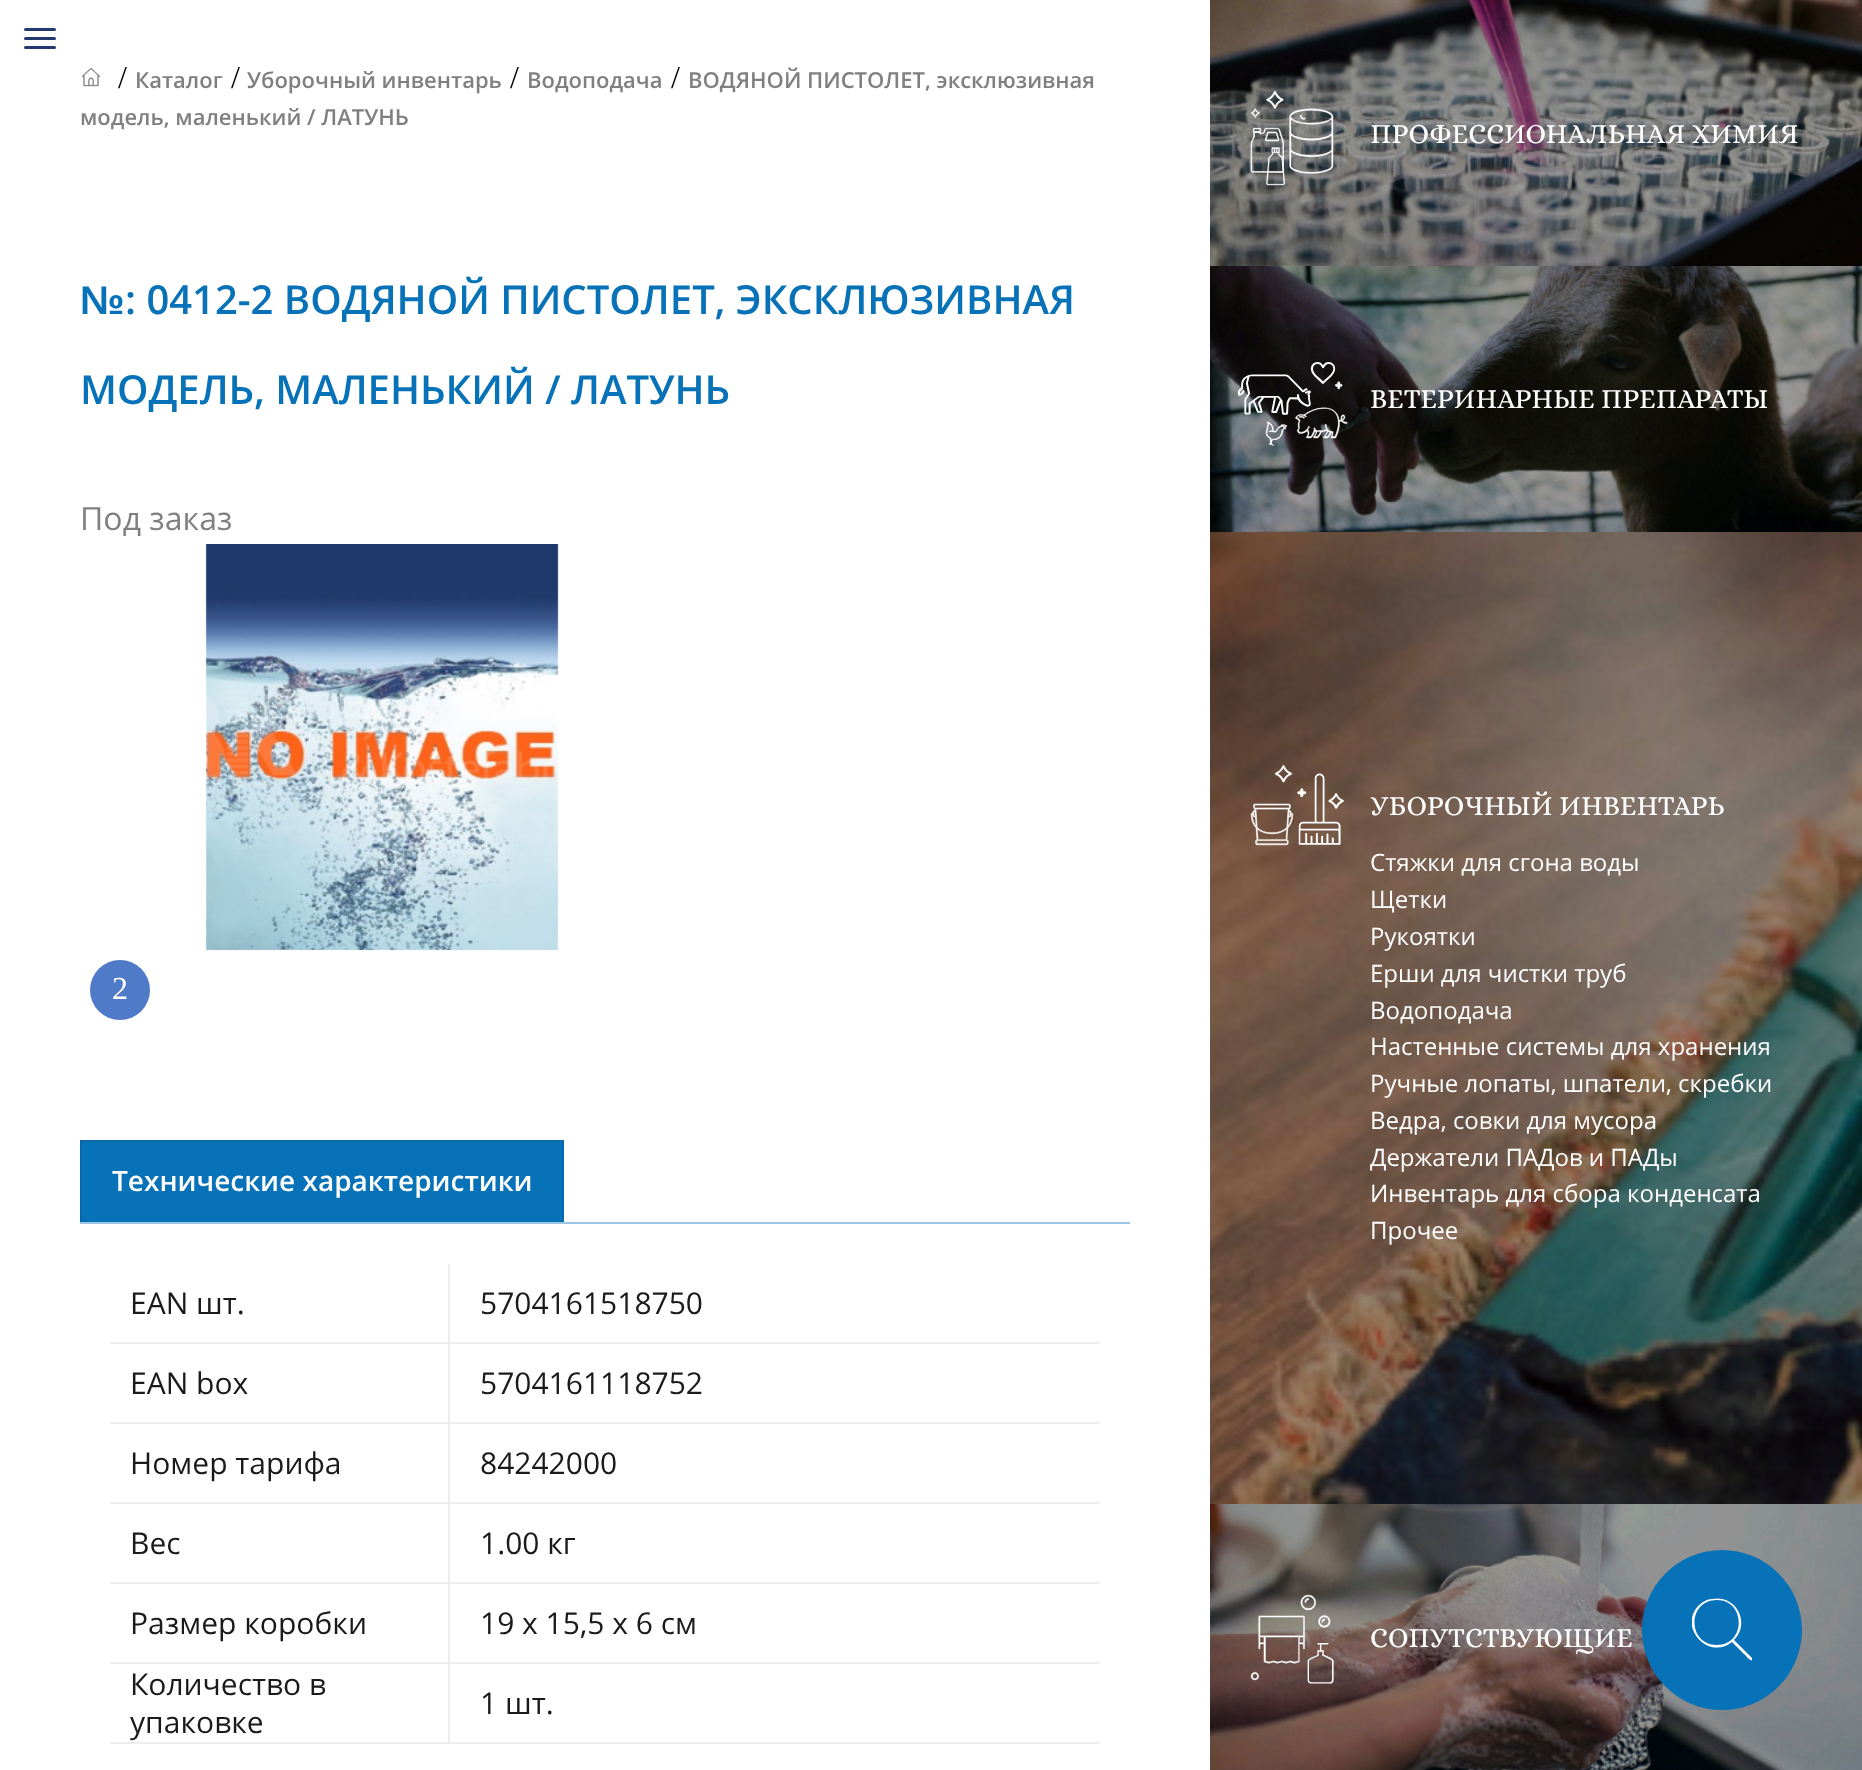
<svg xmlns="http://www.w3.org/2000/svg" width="1862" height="1770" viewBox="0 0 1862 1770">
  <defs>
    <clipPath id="clip1"><rect x="1692" y="1598" width="60" height="64"/></clipPath>
  </defs>
  <rect width="100%" height="100%" fill="rgb(255,255,255)"/>
  <image x="24" y="28" width="32" height="21" href="pic1.png"/>
  <image x="81" y="67" width="20" height="20" href="pic2.png"/>
  <text x="118" y="88" font-family="Liberation Serif" font-size="32" fill="rgb(0,0,0)">/</text>
  <text x="135" y="88" font-family="Open Sans" font-size="22" font-weight="600" fill="rgb(128,128,128)">Каталог</text>
  <text x="231" y="88" font-family="Liberation Serif" font-size="32" fill="rgb(0,0,0)">/</text>
  <text x="247" y="88" font-family="Open Sans" font-size="22" font-weight="600" fill="rgb(128,128,128)">Уборочный инвентарь</text>
  <text x="510" y="88" font-family="Liberation Serif" font-size="32" fill="rgb(0,0,0)">/</text>
  <text x="527" y="88" font-family="Open Sans" font-size="22" font-weight="600" fill="rgb(128,128,128)">Водоподача</text>
  <text x="671" y="88" font-family="Liberation Serif" font-size="32" fill="rgb(0,0,0)">/</text>
  <g font-family="Open Sans" font-size="22" font-weight="600" fill="rgb(128,128,128)">
    <text x="688" y="88">ВОДЯНОЙ ПИСТОЛЕТ, эксклюзивная</text>
    <text x="80" y="125">модель, маленький / ЛАТУНЬ</text>
  </g>
  <text x="80" y="314" font-family="Liberation Sans" font-size="40" font-weight="bold" fill="rgb(7,114,184)">№</text>
  <g font-family="Open Sans" font-size="40" font-weight="600" fill="rgb(7,114,184)">
    <text x="125" y="314">: 0412-2 ВОДЯНОЙ ПИСТОЛЕТ, ЭКСКЛЮЗИВНАЯ</text>
    <text x="80" y="404">МОДЕЛЬ, МАЛЕНЬКИЙ / ЛАТУНЬ</text>
  </g>
  <text x="80" y="530" font-family="Open Sans" font-size="32" fill="rgb(128,128,128)">Под заказ</text>
  <image x="205" y="544" width="354" height="406" href="pic3.png"/>
  <circle cx="120" cy="990" r="30" fill="rgb(79,122,200)"/>
  <text x="112" y="999" font-family="Liberation Serif" font-size="32" fill="rgb(255,255,255)">2</text>
  <rect x="80" y="1222" width="1050" height="2" fill="rgb(156,199,227)"/>
  <rect x="80" y="1140" width="484" height="82" fill="rgb(7,114,184)"/>
  <path d="M80 1140H564L562 1142H82Z" fill="rgb(7,106,171)"/>
  <path d="M564 1140V1222H562V1142Z" fill="rgba(0,0,0,0.07)"/>
  <path d="M80 1222V1140L82 1142V1222Z" fill="rgba(0,0,0,0.07)"/>
  <text x="112" y="1191" font-family="Open Sans" font-size="28" font-weight="600" fill="rgb(255,255,255)">Технические характеристики</text>
  <rect x="110" y="1342" width="990" height="2" fill="rgb(237,237,237)"/>
  <rect x="448" y="1264" width="2" height="78" fill="rgb(237,237,237)"/>
  <g font-family="Open Sans" font-size="30" fill="rgb(26,26,26)">
    <text x="130" y="1314">EAN шт.</text>
    <text x="480" y="1314">5704161518750</text>
  </g>
  <rect x="110" y="1422" width="990" height="2" fill="rgb(237,237,237)"/>
  <rect x="448" y="1344" width="2" height="78" fill="rgb(237,237,237)"/>
  <g font-family="Open Sans" font-size="30" fill="rgb(26,26,26)">
    <text x="130" y="1394">EAN box</text>
    <text x="480" y="1394">5704161118752</text>
  </g>
  <rect x="110" y="1502" width="990" height="2" fill="rgb(237,237,237)"/>
  <rect x="448" y="1424" width="2" height="78" fill="rgb(237,237,237)"/>
  <g font-family="Open Sans" font-size="30" fill="rgb(26,26,26)">
    <text x="130" y="1474">Номер тарифа</text>
    <text x="480" y="1474">84242000</text>
  </g>
  <rect x="110" y="1582" width="990" height="2" fill="rgb(237,237,237)"/>
  <rect x="448" y="1504" width="2" height="78" fill="rgb(237,237,237)"/>
  <g font-family="Open Sans" font-size="30" fill="rgb(26,26,26)">
    <text x="130" y="1554">Вес</text>
    <text x="480" y="1554">1.00 кг</text>
  </g>
  <rect x="110" y="1662" width="990" height="2" fill="rgb(237,237,237)"/>
  <rect x="448" y="1584" width="2" height="78" fill="rgb(237,237,237)"/>
  <g font-family="Open Sans" font-size="30" fill="rgb(26,26,26)">
    <text x="130" y="1634">Размер коробки</text>
    <text x="480" y="1634">19 x 15,5 x 6 см</text>
  </g>
  <rect x="110" y="1742" width="990" height="2" fill="rgb(237,237,237)"/>
  <rect x="448" y="1664" width="2" height="78" fill="rgb(237,237,237)"/>
  <g font-family="Open Sans" font-size="30" fill="rgb(26,26,26)">
    <text>
      <tspan x="130" y="1695">Количество в</tspan>
      <tspan x="130" y="1733">упаковке</tspan>
    </text>
    <text x="480" y="1714">1 шт.</text>
  </g>
  <image x="1210" y="0" width="652" height="266" href="pic4.png"/>
  <image x="1250" y="90" width="84" height="96" href="pic5.png"/>
  <text x="1370" y="143" font-family="Alice" font-size="28" fill="rgb(255,255,255)">ПРОФЕCCИОНАЛЬНАЯ ХИМИЯ</text>
  <image x="1210" y="266" width="652" height="266" href="pic6.png"/>
  <image x="1238" y="362" width="110" height="84" href="pic7.png"/>
  <text x="1370" y="408" font-family="Alice" font-size="28" fill="rgb(255,255,255)">ВЕТЕРИНАРНЫЕ ПРЕПАРАТЫ</text>
  <image x="1210" y="532" width="652" height="972" href="pic8.png"/>
  <image x="1250" y="764" width="94" height="82" href="pic9.png"/>
  <text x="1370" y="815" font-family="Alice" font-size="28" fill="rgb(255,255,255)">УБОРОЧНЫЙ ИНВЕНТАРЬ</text>
  <g font-family="Open Sans" font-size="24" fill="rgb(255,255,255)">
    <text>
      <tspan x="1370" y="871">Стяжки для сгона воды</tspan>
      <tspan x="1370" y="908">Щетки</tspan>
      <tspan x="1370" y="945">Рукоятки</tspan>
      <tspan x="1370" y="982">Ерши для чистки труб</tspan>
      <tspan x="1370" y="1019">Водоподача</tspan>
      <tspan x="1370" y="1055">Настенные системы для хранения</tspan>
      <tspan x="1370" y="1092">Ручные лопаты, шпатели, скребки</tspan>
      <tspan x="1370" y="1129">Ведра, совки для мусора</tspan>
      <tspan x="1370" y="1166">Держатели ПАДов и ПАДы</tspan>
      <tspan x="1370" y="1202">Инвентарь для сбора конденсата</tspan>
      <tspan x="1370" y="1239">Прочее</tspan>
    </text>
  </g>
  <image x="1210" y="1504" width="652" height="266" href="pic10.png"/>
  <image x="1250" y="1594" width="84" height="90" href="pic11.png"/>
  <text x="1370" y="1647" font-family="Alice" font-size="28" fill="rgb(255,255,255)">СОПУТСТВУЮЩИЕ</text>
  <circle cx="1722" cy="1630" r="80" fill="rgb(7,114,184)"/>
  <g clip-path="url(#clip1)">
    <path d="M1752 1658L1734 1640C1751 1623 1736 1594 1712 1599C1707 1599 1703 1602 1699 1605C1677 1627 1709 1661 1732 1642L1744 1654C1745 1654 1750 1662 1752 1660C1752 1660 1752 1659 1752 1658ZM1717 1645C1687 1645 1687 1600 1717 1600C1746 1600 1746 1645 1717 1645Z" fill="rgb(255,255,255)"/>
  </g>
</svg>
